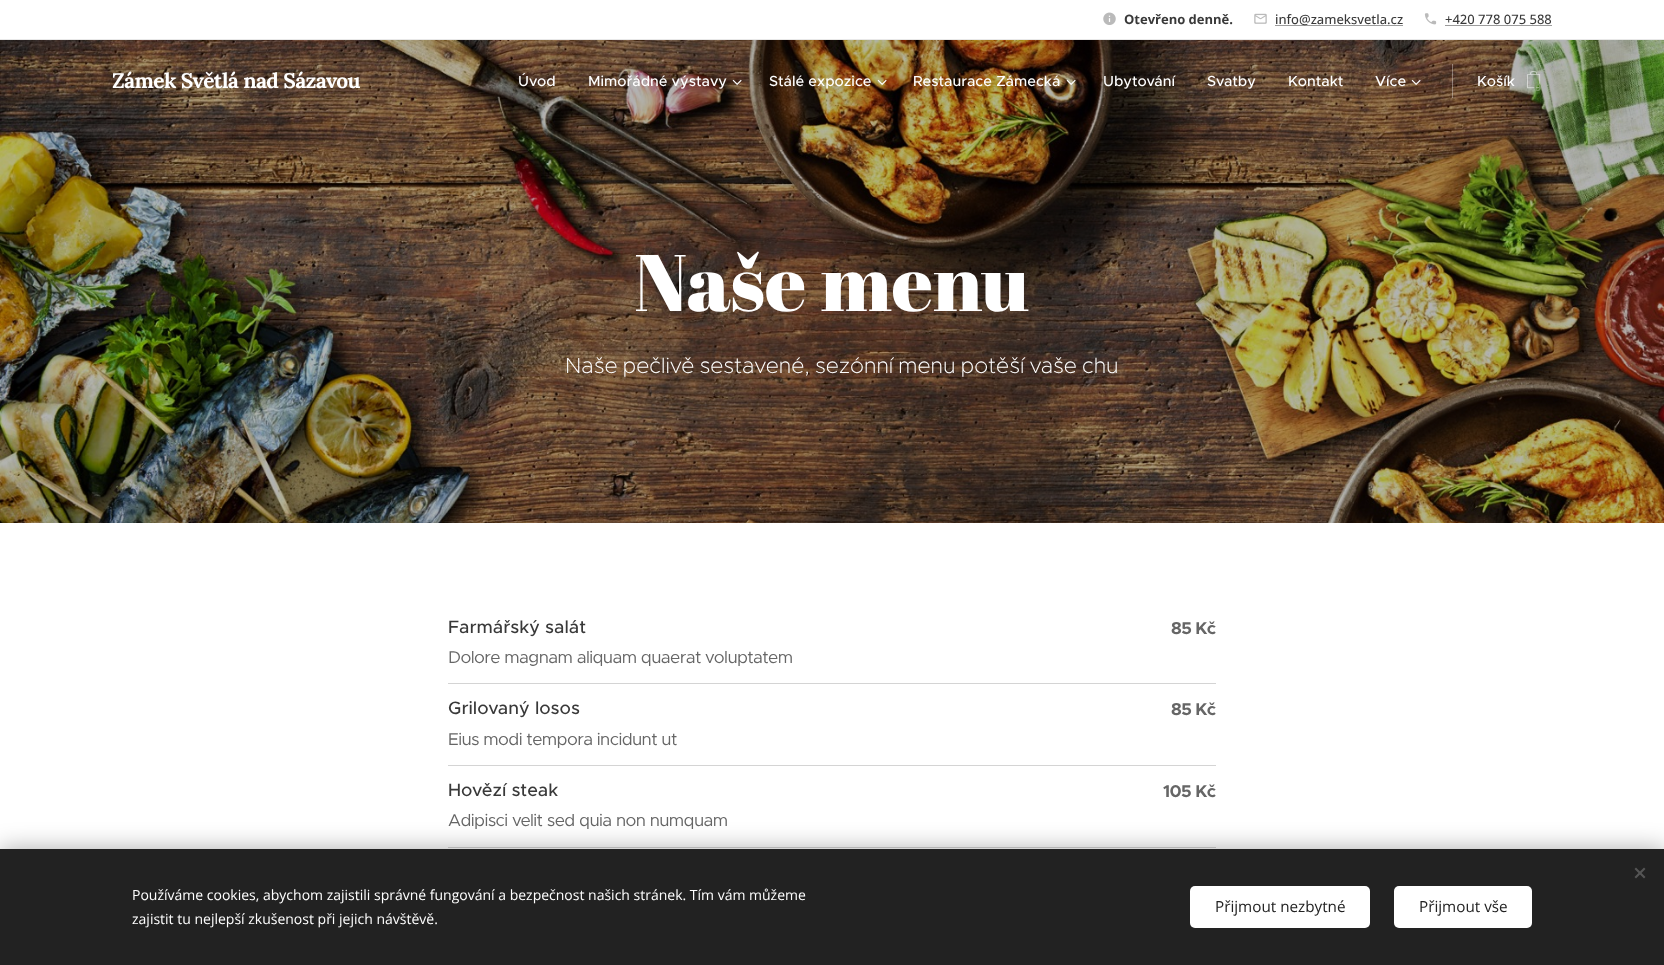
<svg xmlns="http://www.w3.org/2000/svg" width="1664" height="965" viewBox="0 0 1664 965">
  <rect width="100%" height="100%" fill="rgb(255,255,255)"/>
  <image x="1103" y="12" width="13" height="13" href="pic1.png"/>
  <text x="1124" y="24" font-family="Open Sans" font-size="13" font-weight="bold" fill="rgb(57,57,57)">Otevřeno denně.</text>
  <image x="1254" y="13" width="13" height="11" href="pic2.png"/>
  <rect x="1275" y="25" width="128" height="1" fill="rgb(156,156,156)"/>
  <text x="1275" y="24" font-family="Open Sans" font-size="13" font-weight="500" fill="rgb(57,57,57)">info@zameksvetla.cz</text>
  <image x="1424" y="13" width="13" height="12" href="pic3.png"/>
  <text x="1445" y="24" font-family="Open Sans" font-size="13" font-weight="500" fill="rgb(57,57,57)">+420 778 075 588</text>
  <rect x="1445" y="25" width="107" height="1" fill="rgb(156,156,156)"/>
  <rect x="0" y="39" width="1664" height="1" fill="rgb(232,232,232)"/>
  <image x="0" y="40" width="1664" height="483" href="pic9.png"/>
  <text x="112" y="88" font-family="Lora" font-size="21" font-weight="bold" letter-spacing="-0.6" fill="rgb(255,255,255)">Zámek Světlá nad Sázavou</text>
  <g font-family="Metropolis" font-size="14.6" font-weight="500" fill="rgb(255,255,255)">
    <text x="518" y="86">Úvod</text>
    <text x="588" y="86">Mimořádné výstavy</text>
  </g>
  <image x="732" y="79" width="10" height="6" href="pic4.png"/>
  <text x="769" y="86" font-family="Metropolis" font-size="14.6" font-weight="500" fill="rgb(255,255,255)">Stálé expozice</text>
  <image x="877" y="79" width="10" height="6" href="pic5.png"/>
  <text x="913" y="86" font-family="Metropolis" font-size="14.6" font-weight="500" fill="rgb(255,255,255)">Restaurace Zámecká</text>
  <image x="1066" y="79" width="10" height="6" href="pic6.png"/>
  <g font-family="Metropolis" font-size="14.6" font-weight="500" fill="rgb(255,255,255)">
    <text x="1103" y="86">Ubytování</text>
    <text x="1207" y="86">Svatby</text>
    <text x="1288" y="86">Kontakt</text>
    <text x="1375" y="86">Více</text>
  </g>
  <image x="1411" y="79" width="10" height="6" href="pic7.png"/>
  <rect x="1452" y="64" width="1" height="34" fill="rgba(255,255,255,0.35)"/>
  <text x="1477" y="86" font-family="Metropolis" font-size="14.6" font-weight="500" fill="rgb(255,255,255)">Košík</text>
  <image x="1527" y="71" width="14" height="18" href="pic8.png"/>
  <text x="1534" y="91" font-family="Montserrat" font-size="11" font-weight="bold" fill="rgb(120,149,98)">0</text>
  <text x="634" y="311" font-family="Abril Fatface" font-size="80" fill="rgb(255,255,255)">Naše menu</text>
  <text x="565" y="373" word-spacing="-1.25" font-family="Metropolis" font-size="22" font-weight="200" fill="rgb(255,255,255)">Naše pečlivě sestavené, sezónní menu potěší vaše chu</text>
  <rect x="448" y="683" width="768" height="1" fill="rgb(212,212,212)"/>
  <text x="448" y="633" font-family="Metropolis" font-size="18" font-weight="500" fill="rgb(57,57,57)">Farmářský salát</text>
  <text x="448" y="663" font-family="Metropolis" font-size="17.2" letter-spacing="-0.6" fill="rgb(102,102,102)">Dolore magnam aliquam quaerat voluptatem</text>
  <text x="1171" y="634" font-family="Metropolis" font-size="17.2" font-weight="bold" letter-spacing="-0.6" fill="rgb(102,102,102)">85 Kč</text>
  <rect x="448" y="765" width="768" height="1" fill="rgb(212,212,212)"/>
  <text x="448" y="714" font-family="Metropolis" font-size="18" font-weight="500" fill="rgb(57,57,57)">Grilovaný losos</text>
  <text x="448" y="745" font-family="Metropolis" font-size="17.2" letter-spacing="-0.6" fill="rgb(102,102,102)">Eius modi tempora incidunt ut</text>
  <text x="1171" y="715" font-family="Metropolis" font-size="17.2" font-weight="bold" letter-spacing="-0.6" fill="rgb(102,102,102)">85 Kč</text>
  <rect x="448" y="847" width="768" height="1" fill="rgb(212,212,212)"/>
  <text x="448" y="796" font-family="Metropolis" font-size="18" font-weight="500" fill="rgb(57,57,57)">Hovězí steak</text>
  <text x="448" y="826" font-family="Metropolis" font-size="17.2" letter-spacing="-0.6" fill="rgb(102,102,102)">Adipisci velit sed quia non numquam</text>
  <text x="1163" y="797" font-family="Metropolis" font-size="17.2" font-weight="bold" letter-spacing="-0.6" fill="rgb(102,102,102)">105 Kč</text>
  <rect x="0" y="849" width="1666" height="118" fill="rgba(0,0,0,0.33)" filter="blur(12.5px)"/>
  <rect x="0" y="849" width="1664" height="116" fill="rgb(34,34,34)"/>
  <path d="M1634.5 877L1644 867.5L1645.5 869L1636 878.5Z" fill="rgb(85,85,85)"/>
  <path d="M1636 867.5L1645.5 877L1644 878.5L1634.5 869Z" fill="rgb(85,85,85)"/>
  <g font-family="Open Sans" font-size="14" fill="rgb(255,255,255)">
    <text>
      <tspan x="132" y="900">Používáme cookies, abychom zajistili správné fungování a bezpečnost našich stránek. Tím vám můžeme</tspan>
      <tspan x="132" y="924">zajistit tu nejlepší zkušenost při jejich návštěvě.</tspan>
    </text>
  </g>
  <rect x="1190" y="886" width="180" height="42" rx="5" fill="rgb(255,255,255)"/>
  <text x="1215" y="912" font-family="Open Sans" font-size="15.25" fill="rgb(34,34,34)">Přijmout nezbytné</text>
  <rect x="1394" y="886" width="138" height="42" rx="5" fill="rgb(255,255,255)"/>
  <text x="1419" y="912" font-family="Open Sans" font-size="15.25" fill="rgb(34,34,34)">Přijmout vše</text>
</svg>
